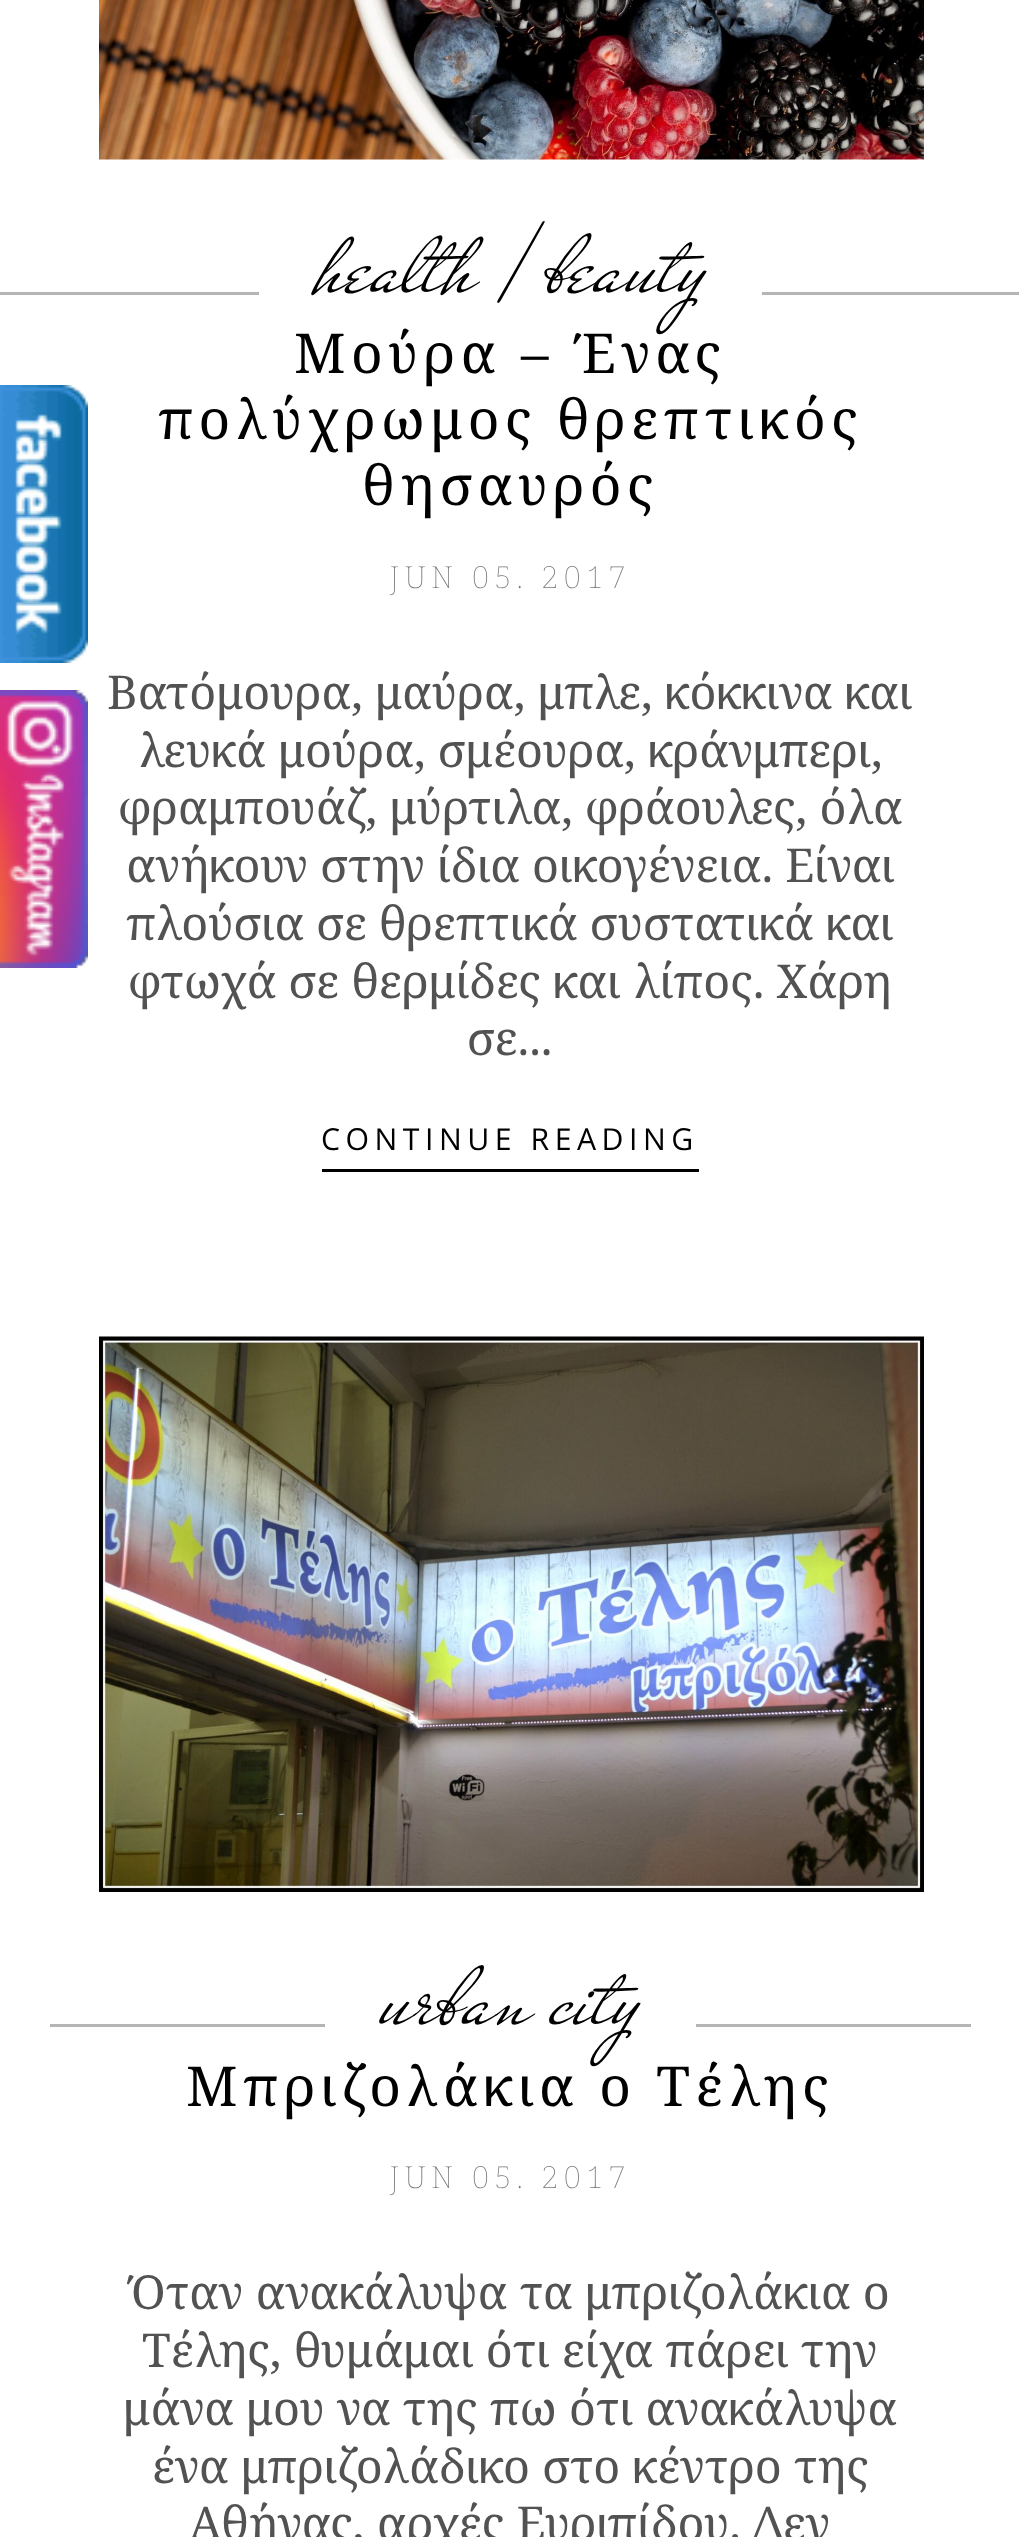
<svg xmlns="http://www.w3.org/2000/svg" width="1019" height="2537" viewBox="0 0 1019 2537">
  <rect width="100%" height="100%" fill="rgb(255,255,255)"/>
  <image x="0" y="385" width="88" height="278" href="pic1.png"/>
  <image x="99" y="0" width="825" height="160" href="pic2.png"/>
  <rect x="0" y="292" width="259" height="3" fill="rgb(181,181,181)"/>
  <text x="315" y="291" font-family="Mr De Haviland" font-size="104.5" fill="rgb(0,0,0)">health / beauty</text>
  <rect x="762" y="292" width="257" height="3" fill="rgb(181,181,181)"/>
  <g font-family="Noto Serif" font-size="55" letter-spacing="5.5" fill="rgb(0,0,0)">
    <text x="294" y="373">Μούρα – Ένας</text>
    <text x="158" y="439">πολύχρωμος θρεπτικός</text>
    <text x="362" y="505">θησαυρός</text>
  </g>
  <text x="389" y="588" font-family="Noto Serif" font-size="30.25" font-weight="100" letter-spacing="5.5" fill="rgb(121,121,121)">JUN 05. 2017</text>
  <g font-family="Noto Serif" font-size="46.75" fill="rgb(82,82,82)">
    <text x="107" y="709">Βατόμουρα, μαύρα, μπλε, κόκκινα και</text>
    <text x="138" y="767">λευκά μούρα, σμέουρα, κράνμπερι,</text>
    <text x="118" y="824">φραμπουάζ, μύρτιλα, φράουλες, όλα</text>
    <text>
      <tspan x="126" y="882">ανήκουν στην ίδια οικογένεια. Είναι</tspan>
      <tspan x="126" y="940">πλούσια σε θρεπτικά συστατικά και</tspan>
    </text>
    <text x="128" y="998">φτωχά σε θερμίδες και λίπος. Χάρη</text>
    <text x="467" y="1055">σε...</text>
  </g>
  <text x="321" y="1150" font-family="Open Sans" font-size="30.25" letter-spacing="5.5" fill="rgb(0,0,0)">CONTINUE READING</text>
  <rect x="322" y="1169" width="377" height="3" fill="rgb(0,0,0)"/>
  <image x="99" y="1336" width="825" height="556" href="pic3.png"/>
  <rect x="50" y="2024" width="275" height="3" fill="rgb(181,181,181)"/>
  <text x="380" y="2023" font-family="Mr De Haviland" font-size="104.5" fill="rgb(0,0,0)">urban city</text>
  <rect x="696" y="2024" width="275" height="3" fill="rgb(181,181,181)"/>
  <text x="186" y="2106" font-family="Noto Serif" font-size="55" letter-spacing="5.5" fill="rgb(0,0,0)">Μπριζολάκια ο Τέλης</text>
  <text x="389" y="2188" font-family="Noto Serif" font-size="30.25" font-weight="100" letter-spacing="5.5" fill="rgb(121,121,121)">JUN 05. 2017</text>
  <g font-family="Noto Serif" font-size="46.75" fill="rgb(82,82,82)">
    <text x="131" y="2309">Όταν ανακάλυψα τα μπριζολάκια ο</text>
    <text x="142" y="2367">Τέλης, θυμάμαι ότι είχα πάρει την</text>
    <text x="123" y="2425">μάνα μου να της πω ότι ανακάλυψα</text>
    <text x="152" y="2483">ένα μπριζολάδικο στο κέντρο της</text>
    <text x="189" y="2540">Αθήνας, αρχές Ευριπίδου. Δεν</text>
  </g>
  <image x="0" y="690" width="88" height="278" href="pic4.png"/>
</svg>
